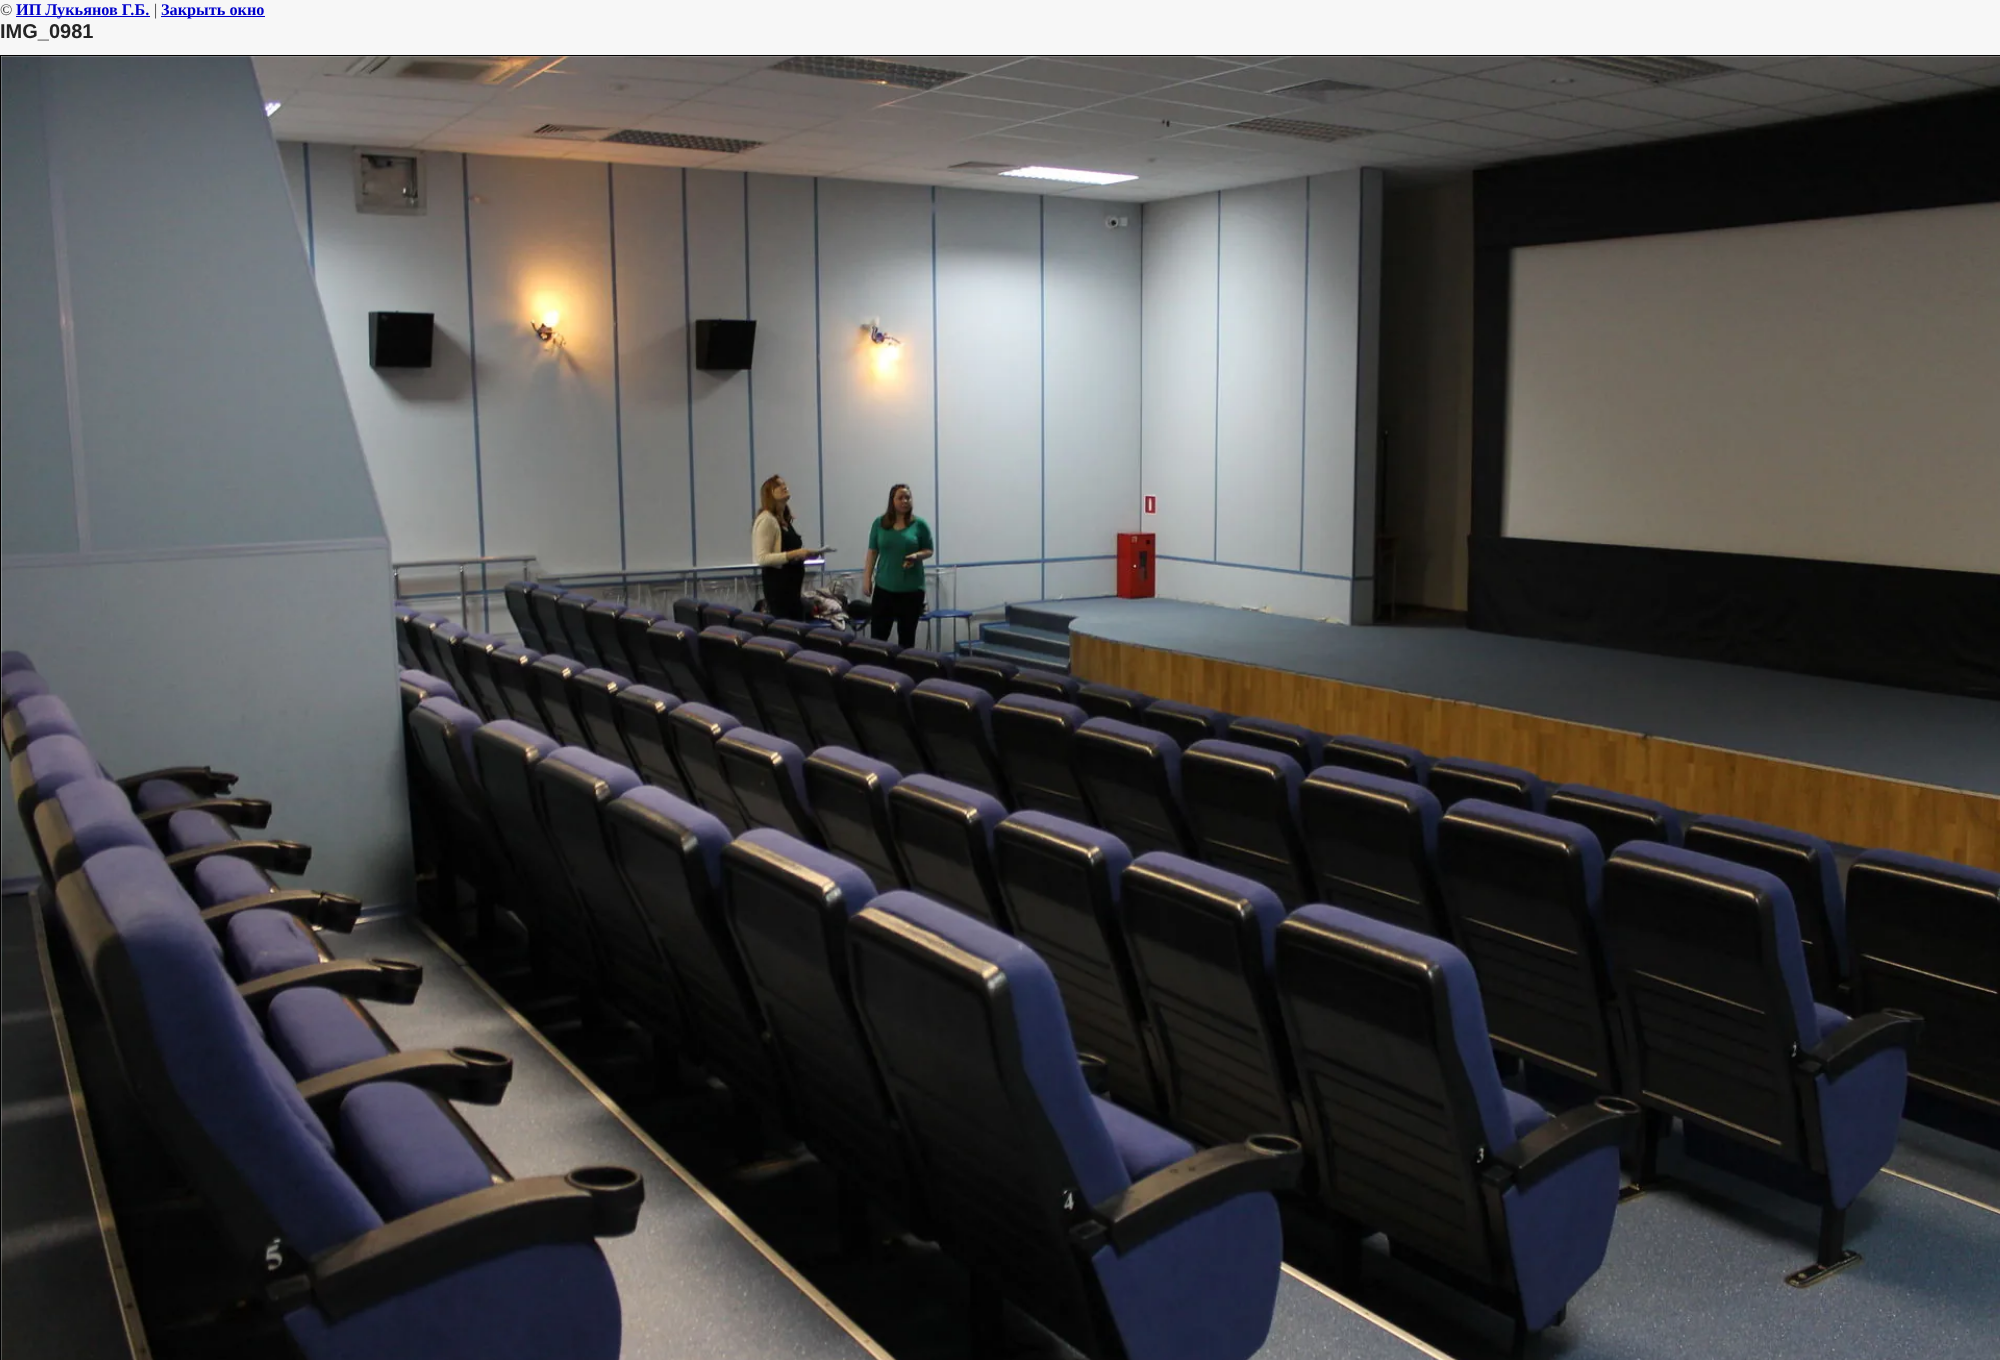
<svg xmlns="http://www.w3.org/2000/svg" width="2000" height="1360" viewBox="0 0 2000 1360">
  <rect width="100%" height="100%" fill="rgb(247,247,247)"/>
  <text x="0" y="15" font-family="Liberation Serif" font-size="16.25" fill="rgb(51,51,51)">©</text>
  <rect x="16" y="16" width="134" height="1" fill="rgb(0,0,204)"/>
  <text x="16" y="15" font-family="Liberation Serif" font-size="16.25" font-weight="bold" fill="rgb(0,0,204)">ИП Лукьянов Г.Б.</text>
  <text x="154" y="15" font-family="Liberation Serif" font-size="16.25" fill="rgb(51,51,51)">|</text>
  <rect x="161" y="16" width="104" height="1" fill="rgb(0,0,204)"/>
  <text x="161" y="15" font-family="Liberation Serif" font-size="16.25" font-weight="bold" fill="rgb(0,0,204)">Закрыть окно</text>
  <text x="0" y="38" font-family="Liberation Sans" font-size="20" font-weight="bold" fill="rgb(36,36,36)">IMG_0981</text>
  <rect x="0.5" y="55.5" width="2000" height="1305" fill="none" stroke="rgb(0,0,0)"/>
  <image x="1" y="56" width="1999" height="1304" href="pic1.png"/>
</svg>
